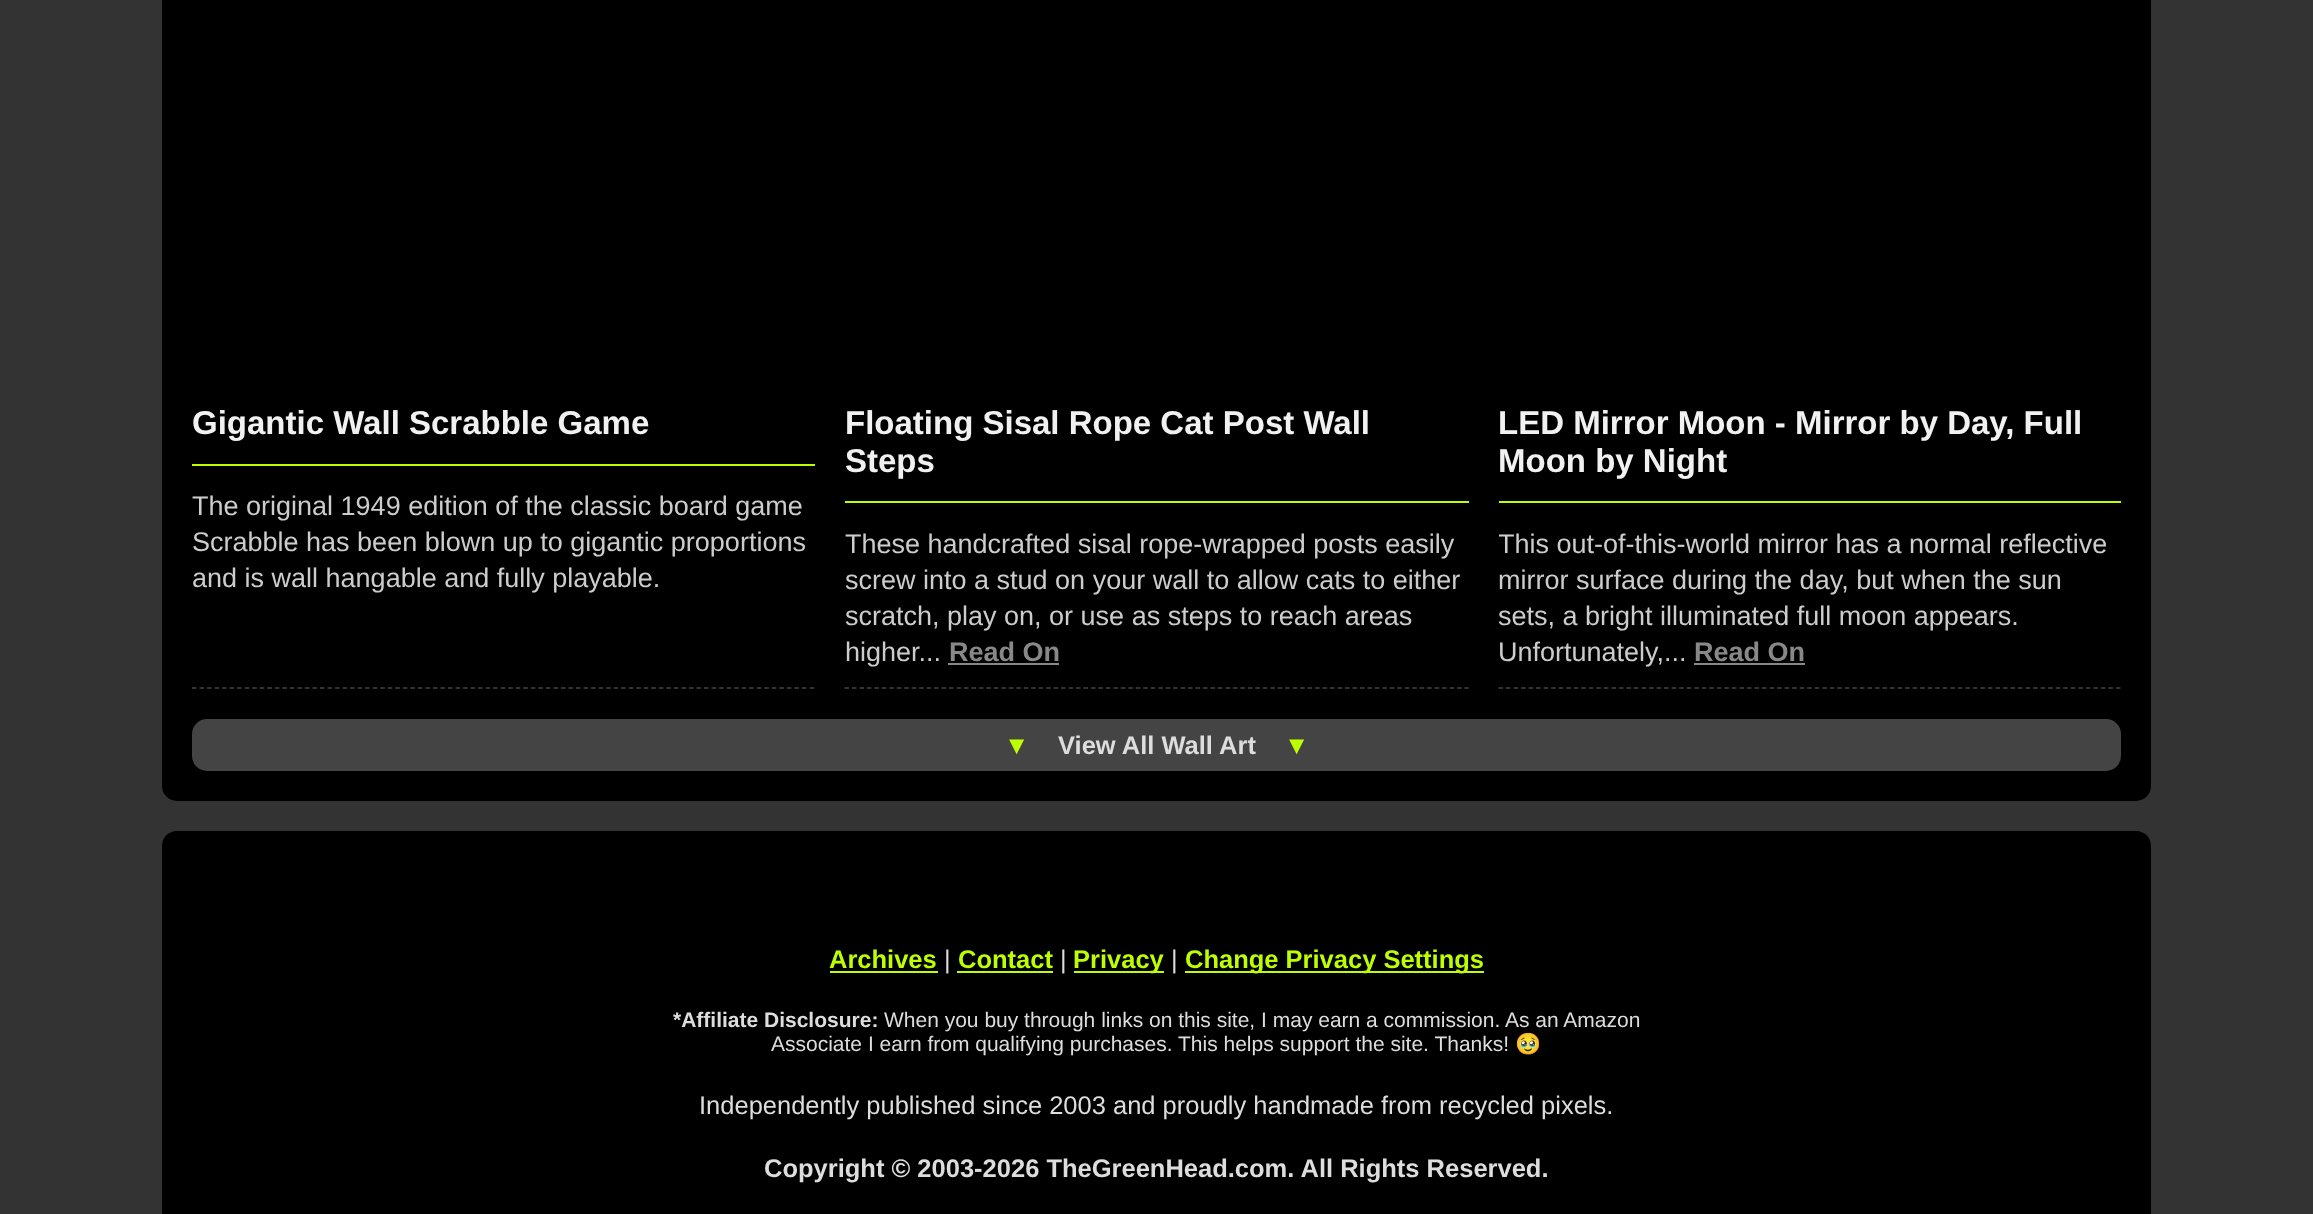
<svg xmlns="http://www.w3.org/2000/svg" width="2313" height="1214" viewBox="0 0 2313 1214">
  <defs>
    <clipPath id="clip1"><rect x="1499" y="0" width="622" height="687"/></clipPath>
  </defs>
  <rect width="100%" height="100%" fill="rgb(51,51,51)"/>
  <rect x="162" y="-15" width="1989" height="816" rx="15" fill="rgb(0,0,0)"/>
  <path d="M192 688H814.5" fill="none" stroke="rgb(68,68,68)" stroke-width="1.5" stroke-dasharray="4.5 3.03"/>
  <text x="192" y="434" font-family="Liberation Sans" font-size="33" font-weight="bold" fill="rgb(241,241,241)">Gigantic Wall Scrabble Game</text>
  <rect x="192" y="464" width="623" height="2" fill="rgb(189,255,0)"/>
  <g font-family="Liberation Sans" font-size="27" fill="rgb(204,204,204)">
    <text>
      <tspan x="192" y="515">The original 1949 edition of the classic board game</tspan>
      <tspan x="192" y="551">Scrabble has been blown up to gigantic proportions</tspan>
      <tspan x="192" y="587">and is wall hangable and fully playable.</tspan>
    </text>
  </g>
  <path d="M844.5 688H1468.5" fill="none" stroke="rgb(68,68,68)" stroke-width="1.5" stroke-dasharray="4.5 2.97"/>
  <g font-family="Liberation Sans" font-size="33" font-weight="bold" fill="rgb(241,241,241)">
    <text>
      <tspan x="845" y="434">Floating Sisal Rope Cat Post Wall</tspan>
      <tspan x="845" y="472">Steps</tspan>
    </text>
  </g>
  <rect x="845" y="501" width="624" height="2" fill="rgb(189,255,0)"/>
  <g font-family="Liberation Sans" font-size="27" fill="rgb(204,204,204)">
    <text>
      <tspan x="845" y="553">These handcrafted sisal rope-wrapped posts easily</tspan>
      <tspan x="845" y="589">screw into a stud on your wall to allow cats to either</tspan>
      <tspan x="845" y="625">scratch, play on, or use as steps to reach areas</tspan>
      <tspan x="845" y="661">higher...</tspan>
    </text>
  </g>
  <text x="949" y="661" font-family="Liberation Sans" font-size="27" font-weight="bold" fill="rgb(136,136,136)">Read On</text>
  <rect x="948" y="663" width="111" height="2" fill="rgb(136,136,136)"/>
  <path d="M1498.5 688H2121" fill="none" stroke="rgb(68,68,68)" stroke-width="1.5" stroke-dasharray="4.5 3.03"/>
  <g font-family="Liberation Sans" font-size="33" font-weight="bold" fill="rgb(241,241,241)">
    <text>
      <tspan x="1498" y="434">LED Mirror Moon - Mirror by Day, Full</tspan>
      <tspan x="1498" y="472">Moon by Night</tspan>
    </text>
  </g>
  <rect x="1499" y="501" width="622" height="2" fill="rgb(189,255,0)"/>
  <g clip-path="url(#clip1)">
    <text x="1498" y="553" font-family="Liberation Sans" font-size="27" fill="rgb(204,204,204)">This out-of-this-world mirror has a normal reflective</text>
  </g>
  <g font-family="Liberation Sans" font-size="27" fill="rgb(204,204,204)">
    <text>
      <tspan x="1498" y="589">mirror surface during the day, but when the sun</tspan>
      <tspan x="1498" y="625">sets, a bright illuminated full moon appears.</tspan>
      <tspan x="1498" y="661">Unfortunately,...</tspan>
    </text>
  </g>
  <text x="1694" y="661" font-family="Liberation Sans" font-size="27" font-weight="bold" fill="rgb(136,136,136)">Read On</text>
  <rect x="1694" y="663" width="111" height="2" fill="rgb(136,136,136)"/>
  <rect x="192" y="719" width="1929" height="52" rx="15" fill="rgb(68,68,68)"/>
  <text x="1004" y="754" font-family="Liberation Sans" font-size="25.5" font-weight="bold" fill="rgb(189,255,0)">▼</text>
  <text x="1058" y="754" font-family="Liberation Sans" font-size="25.5" font-weight="bold" fill="rgb(221,221,221)">View All Wall Art</text>
  <text x="1284" y="754" font-family="Liberation Sans" font-size="25.5" font-weight="bold" fill="rgb(189,255,0)">▼</text>
  <path d="M177 831H2136C2144.5 831 2151 837.5 2151 846V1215H162V846C162 837.5 168.5 831 177 831Z" fill="rgb(0,0,0)"/>
  <text x="829" y="968" font-family="Liberation Sans" font-size="25.5" font-weight="bold" fill="rgb(189,255,0)">Archives</text>
  <rect x="830" y="971" width="108" height="2" fill="rgb(189,255,0)"/>
  <text x="944" y="968" font-family="Liberation Sans" font-size="25.5" fill="rgb(221,221,221)">|</text>
  <text x="958" y="968" font-family="Liberation Sans" font-size="25.5" font-weight="bold" fill="rgb(189,255,0)">Contact</text>
  <rect x="957" y="971" width="96" height="2" fill="rgb(189,255,0)"/>
  <text x="1060" y="968" font-family="Liberation Sans" font-size="25.5" fill="rgb(221,221,221)">|</text>
  <rect x="1074" y="971" width="90" height="2" fill="rgb(189,255,0)"/>
  <text x="1073" y="968" font-family="Liberation Sans" font-size="25.5" font-weight="bold" fill="rgb(189,255,0)">Privacy</text>
  <text x="1171" y="968" font-family="Liberation Sans" font-size="25.5" fill="rgb(221,221,221)">|</text>
  <rect x="1185" y="971" width="299" height="2" fill="rgb(189,255,0)"/>
  <text x="1185" y="968" font-family="Liberation Sans" font-size="25.5" font-weight="bold" fill="rgb(189,255,0)">Change Privacy Settings</text>
  <text x="673" y="1027" font-family="Liberation Sans" font-size="21" font-weight="bold" fill="rgb(221,221,221)">*Affiliate Disclosure:</text>
  <g font-family="Liberation Sans" font-size="21" fill="rgb(221,221,221)">
    <text x="884" y="1027">When you buy through links on this site, I may earn a commission. As an Amazon</text>
    <text x="771" y="1051">Associate I earn from qualifying purchases. This helps support the site. Thanks!</text>
  </g>
  <text x="1515" y="1051" font-family="Noto Color Emoji" font-size="21" fill="rgb(221,221,221)">🥹</text>
  <text x="699" y="1114" font-family="Liberation Sans" font-size="25.5" fill="rgb(221,221,221)">Independently published since 2003 and proudly handmade from recycled pixels.</text>
  <text x="764" y="1177" font-family="Liberation Sans" font-size="25.5" font-weight="bold" fill="rgb(221,221,221)">Copyright © 2003-2026 TheGreenHead.com. All Rights Reserved.</text>
</svg>
